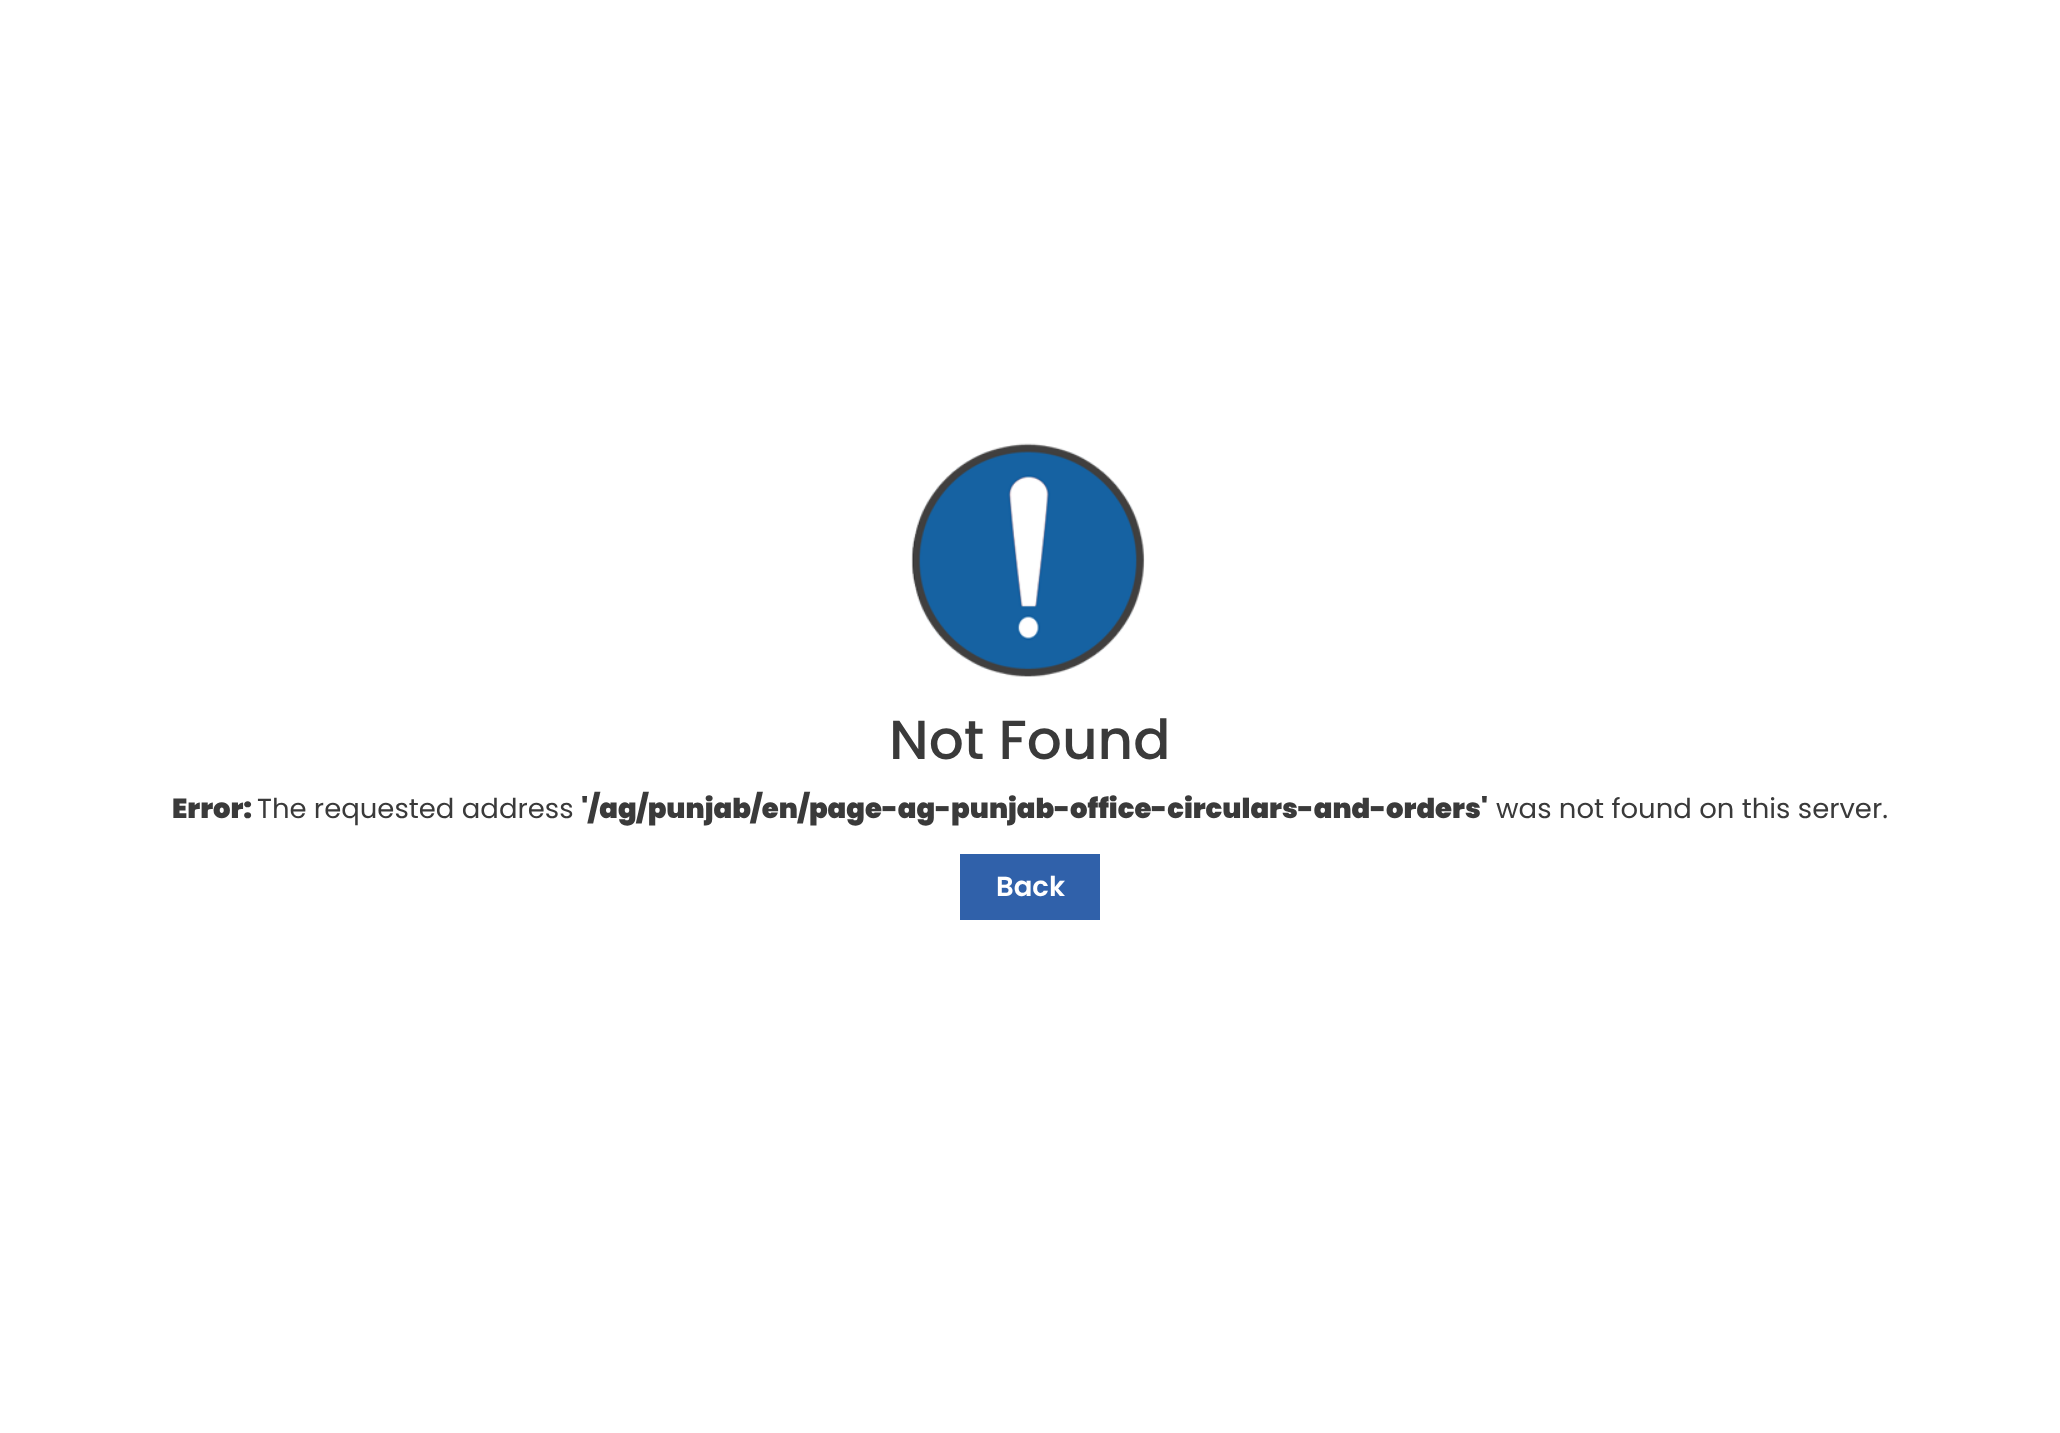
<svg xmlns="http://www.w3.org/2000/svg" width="2060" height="1433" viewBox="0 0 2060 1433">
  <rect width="100%" height="100%" fill="rgb(255,255,255)"/>
  <image x="911" y="443" width="234" height="234" href="pic1.png"/>
  <text x="889" y="759" font-family="Poppins" font-size="55" font-weight="500" fill="rgb(58,58,58)">Not Found</text>
  <text x="172" y="818" font-family="Poppins" font-size="27.5" font-weight="900" fill="rgb(58,58,58)">Error:</text>
  <text x="257" y="818" font-family="Poppins" font-size="27.5" fill="rgb(58,58,58)">The requested address</text>
  <text x="581" y="818" font-family="Poppins" font-size="27.5" font-weight="900" fill="rgb(58,58,58)">'/ag/punjab/en/page-ag-punjab-office-circulars-and-orders'</text>
  <text x="1496" y="818" font-family="Poppins" font-size="27.5" fill="rgb(58,58,58)">was not found on this server.</text>
  <rect x="960" y="854" width="140" height="66" fill="rgb(48,97,170)"/>
  <text x="996" y="896" font-family="Poppins" font-size="27.5" font-weight="600" fill="rgb(255,255,255)">Back</text>
</svg>
